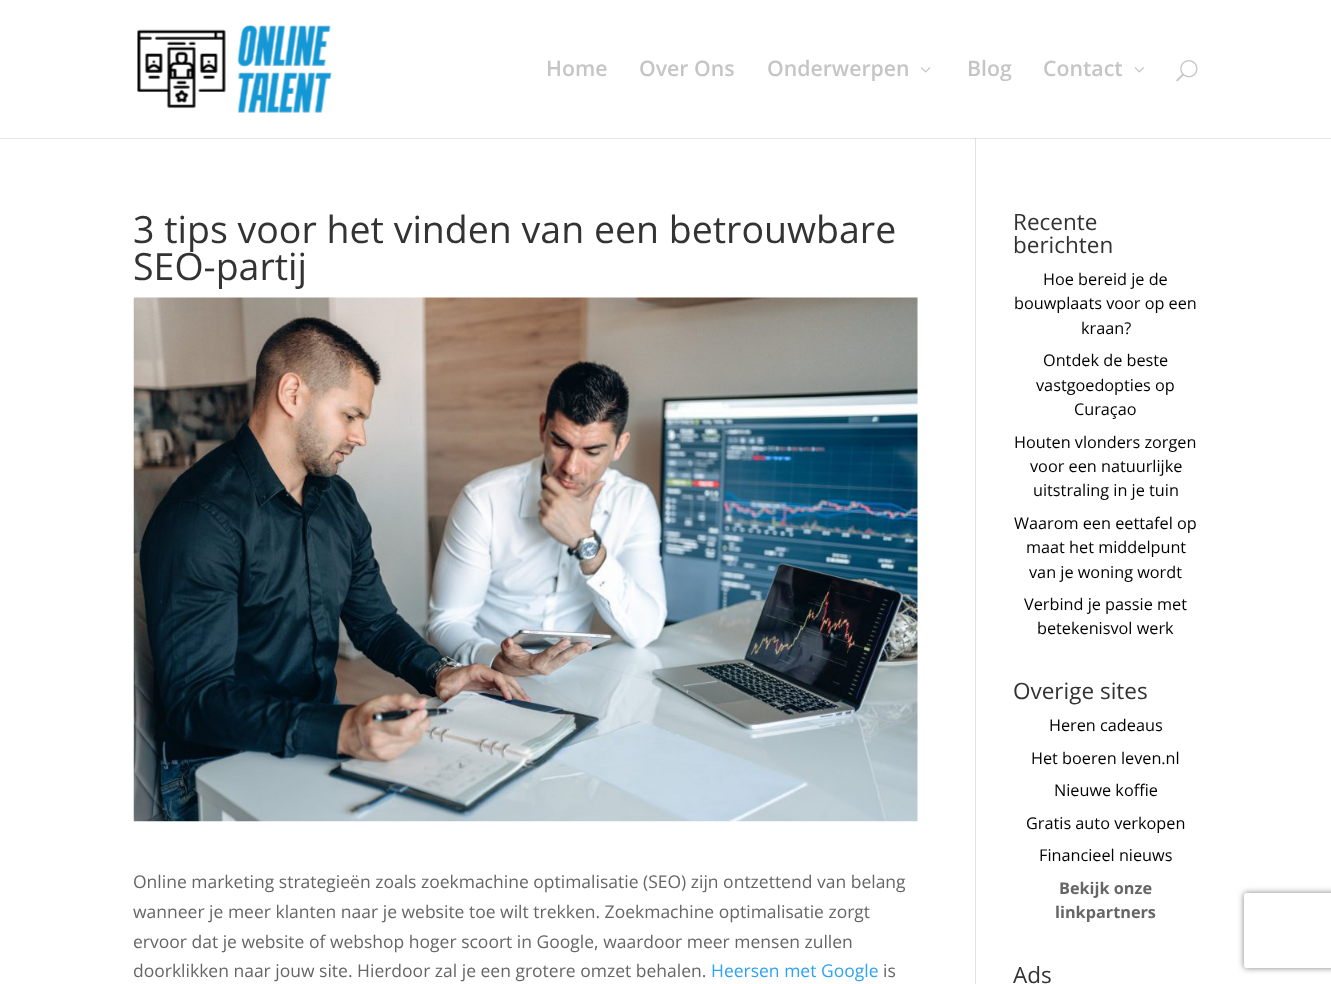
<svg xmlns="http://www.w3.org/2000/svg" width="1331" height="984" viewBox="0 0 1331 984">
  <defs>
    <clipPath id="clip1"><path d="M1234 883H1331V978H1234ZM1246.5 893H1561.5C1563 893 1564 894 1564 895.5V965.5C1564 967 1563 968 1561.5 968H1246.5C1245 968 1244 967 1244 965.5V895.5C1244 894 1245 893 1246.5 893Z" clip-rule="evenodd"/></clipPath>
  </defs>
  <rect width="100%" height="100%" fill="rgb(255,255,255)"/>
  <rect x="0" y="138" width="1331" height="1" fill="rgb(230,230,230)"/>
  <image x="137" y="25" width="195" height="88" href="pic1.png"/>
  <g font-family="Open Sans" font-size="21.25" font-weight="600" fill="rgb(197,197,197)">
    <text x="546" y="76">Home</text>
    <text x="639" y="76">Over Ons</text>
    <text x="767" y="76">Onderwerpen</text>
  </g>
  <image x="921" y="67" width="10" height="6" href="pic2.png"/>
  <g font-family="Open Sans" font-size="21.25" font-weight="600" fill="rgb(197,197,197)">
    <text x="967" y="76">Blog</text>
    <text x="1043" y="76">Contact</text>
  </g>
  <image x="1134" y="67" width="10" height="6" href="pic3.png"/>
  <image x="1176" y="60" width="22" height="22" href="pic4.png"/>
  <rect x="975" y="138" width="1" height="846" fill="rgb(226,226,226)"/>
  <rect x="975" y="138" width="1" height="1" fill="rgb(203,203,203)"/>
  <g font-family="Open Sans" font-size="37.5" fill="rgb(51,51,51)">
    <text>
      <tspan x="133" y="243">3 tips voor het vinden van een betrouwbare</tspan>
      <tspan x="133" y="280">SEO-partij</tspan>
    </text>
  </g>
  <image x="133" y="297" width="785" height="525" href="pic5.png"/>
  <g font-family="Open Sans" font-size="17.5" fill="rgb(102,102,102)">
    <text>
      <tspan x="133" y="888">Online marketing strategieën zoals zoekmachine optimalisatie (SEO) zijn ontzettend van belang</tspan>
      <tspan x="133" y="918">wanneer je meer klanten naar je website toe wilt trekken. Zoekmachine optimalisatie zorgt</tspan>
      <tspan x="133" y="948">ervoor dat je website of webshop hoger scoort in Google, waardoor meer mensen zullen</tspan>
      <tspan x="133" y="977">doorklikken naar jouw site. Hierdoor zal je een grotere omzet behalen.</tspan>
    </text>
  </g>
  <text x="711" y="977" font-family="Open Sans" font-size="17.5" fill="rgb(46,163,242)">Heersen met Google</text>
  <text x="883" y="977" font-family="Open Sans" font-size="17.5" fill="rgb(102,102,102)">is</text>
  <g font-family="Open Sans" font-size="22.5" fill="rgb(51,51,51)">
    <text>
      <tspan x="1013" y="230">Recente</tspan>
      <tspan x="1013" y="253">berichten</tspan>
    </text>
  </g>
  <g font-family="Open Sans" font-size="16.25" fill="rgb(0,0,0)">
    <text x="1043" y="285">Hoe bereid je de</text>
    <text x="1014" y="309">bouwplaats voor op een</text>
    <text x="1081" y="334">kraan?</text>
    <text x="1043" y="366">Ontdek de beste</text>
    <text x="1036" y="391">vastgoedopties op</text>
    <text x="1074" y="415">Curaçao</text>
    <text x="1014" y="448">Houten vlonders zorgen</text>
    <text x="1030" y="472">voor een natuurlijke</text>
    <text x="1033" y="496">uitstraling in je tuin</text>
    <text x="1014" y="529">Waarom een eettafel op</text>
    <text x="1026" y="553">maat het middelpunt</text>
    <text x="1029" y="578">van je woning wordt</text>
    <text x="1024" y="610">Verbind je passie met</text>
    <text x="1037" y="634">betekenisvol werk</text>
  </g>
  <text x="1013" y="699" font-family="Open Sans" font-size="22.5" fill="rgb(51,51,51)">Overige sites</text>
  <g font-family="Open Sans" font-size="16.25" fill="rgb(0,0,0)">
    <text x="1049" y="731">Heren cadeaus</text>
    <text x="1031" y="764">Het boeren leven.nl</text>
    <text x="1054" y="796">Nieuwe koffie</text>
    <text x="1026" y="829">Gratis auto verkopen</text>
    <text x="1039" y="861">Financieel nieuws</text>
  </g>
  <g font-family="Open Sans" font-size="16.25" font-weight="bold" fill="rgb(102,102,102)">
    <text x="1059" y="894">Bekijk onze</text>
    <text x="1055" y="918">linkpartners</text>
  </g>
  <text x="1013" y="983" font-family="Open Sans" font-size="22.5" fill="rgb(51,51,51)">Ads</text>
  <g clip-path="url(#clip1)">
    <rect x="1244" y="893" width="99" height="75" rx="2.5" fill="rgb(128,128,128)" filter="blur(3px)"/>
  </g>
</svg>
